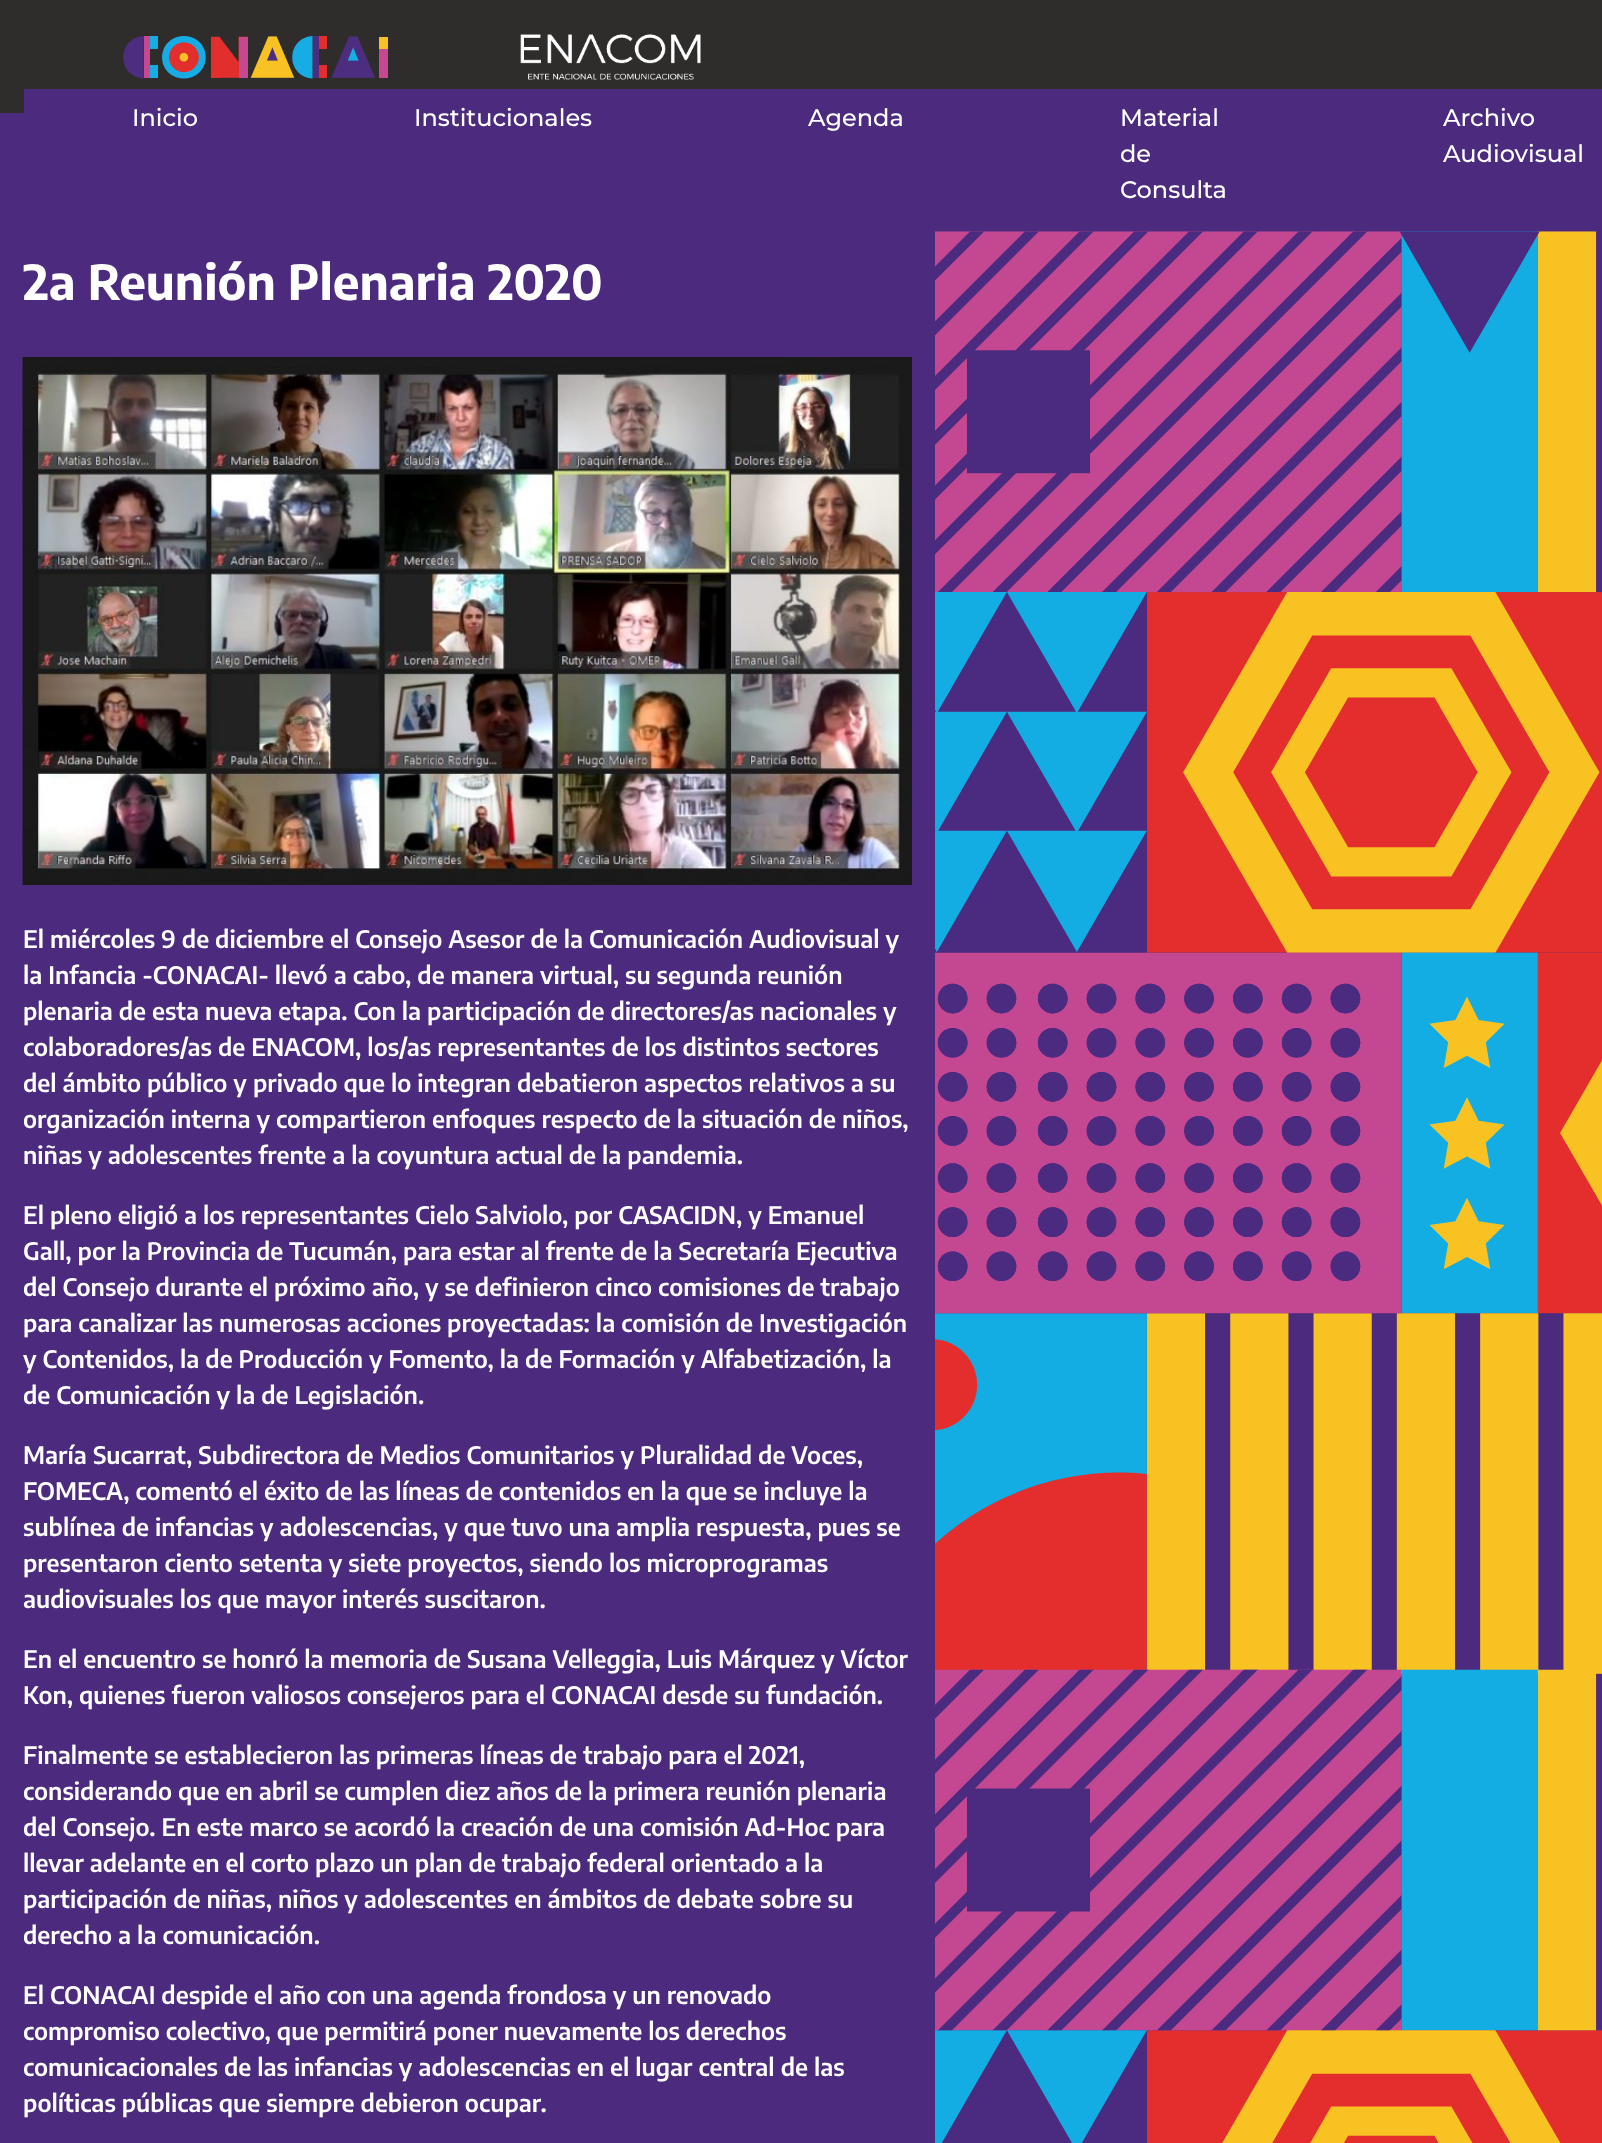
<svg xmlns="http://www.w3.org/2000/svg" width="1602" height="2143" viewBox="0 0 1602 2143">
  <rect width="100%" height="100%" fill="rgb(76,43,127)"/>
  <rect x="0" y="0" width="1602" height="113" fill="rgb(46,45,44)"/>
  <image x="123" y="36" width="265" height="43" href="pic1.png"/>
  <image x="520" y="34" width="181" height="46" href="pic2.png"/>
  <rect x="24" y="89" width="1578" height="24" fill="rgb(76,43,127)"/>
  <g font-family="Montserrat" font-size="24" font-weight="500" fill="rgb(255,255,255)">
    <text x="132" y="126">Inicio</text>
    <text x="414" y="126">Institucionales</text>
    <text x="808" y="126">Agenda</text>
    <text>
      <tspan x="1120" y="126">Material</tspan>
      <tspan x="1120" y="162">de</tspan>
      <tspan x="1120" y="198">Consulta</tspan>
    </text>
    <text>
      <tspan x="1443" y="126">Archivo</tspan>
      <tspan x="1443" y="162">Audiovisual</tspan>
    </text>
  </g>
  <text x="23" y="300" font-family="Encode Sans Condensed" font-size="48" font-weight="bold" fill="rgb(255,255,255)">2a Reunión Plenaria 2020</text>
  <image x="22" y="357" width="890" height="528" href="pic3.png"/>
  <g font-family="Encode Sans Condensed" font-size="24" font-weight="600" fill="rgb(255,255,255)">
    <text>
      <tspan x="23" y="948">El miércoles 9 de diciembre el Consejo Asesor de la Comunicación Audiovisual y</tspan>
      <tspan x="23" y="984">la Infancia -CONACAI- llevó a cabo, de manera virtual, su segunda reunión</tspan>
      <tspan x="23" y="1020">plenaria de esta nueva etapa. Con la participación de directores/as nacionales y</tspan>
      <tspan x="23" y="1056">colaboradores/as de ENACOM, los/as representantes de los distintos sectores</tspan>
      <tspan x="23" y="1092">del ámbito público y privado que lo integran debatieron aspectos relativos a su</tspan>
      <tspan x="23" y="1128">organización interna y compartieron enfoques respecto de la situación de niños,</tspan>
      <tspan x="23" y="1164">niñas y adolescentes frente a la coyuntura actual de la pandemia.</tspan>
    </text>
    <text>
      <tspan x="23" y="1224">El pleno eligió a los representantes Cielo Salviolo, por CASACIDN, y Emanuel</tspan>
      <tspan x="23" y="1260">Gall, por la Provincia de Tucumán, para estar al frente de la Secretaría Ejecutiva</tspan>
      <tspan x="23" y="1296">del Consejo durante el próximo año, y se definieron cinco comisiones de trabajo</tspan>
      <tspan x="23" y="1332">para canalizar las numerosas acciones proyectadas: la comisión de Investigación</tspan>
      <tspan x="23" y="1368">y Contenidos, la de Producción y Fomento, la de Formación y Alfabetización, la</tspan>
      <tspan x="23" y="1404">de Comunicación y la de Legislación.</tspan>
    </text>
    <text>
      <tspan x="23" y="1464">María Sucarrat, Subdirectora de Medios Comunitarios y Pluralidad de Voces,</tspan>
      <tspan x="23" y="1500">FOMECA, comentó el éxito de las líneas de contenidos en la que se incluye la</tspan>
      <tspan x="23" y="1536">sublínea de infancias y adolescencias, y que tuvo una amplia respuesta, pues se</tspan>
      <tspan x="23" y="1572">presentaron ciento setenta y siete proyectos, siendo los microprogramas</tspan>
      <tspan x="23" y="1608">audiovisuales los que mayor interés suscitaron.</tspan>
    </text>
    <text>
      <tspan x="23" y="1668">En el encuentro se honró la memoria de Susana Velleggia, Luis Márquez y Víctor</tspan>
      <tspan x="23" y="1704">Kon, quienes fueron valiosos consejeros para el CONACAI desde su fundación.</tspan>
    </text>
    <text>
      <tspan x="23" y="1764">Finalmente se establecieron las primeras líneas de trabajo para el 2021,</tspan>
      <tspan x="23" y="1800">considerando que en abril se cumplen diez años de la primera reunión plenaria</tspan>
      <tspan x="23" y="1836">del Consejo. En este marco se acordó la creación de una comisión Ad-Hoc para</tspan>
      <tspan x="23" y="1872">llevar adelante en el corto plazo un plan de trabajo federal orientado a la</tspan>
      <tspan x="23" y="1908">participación de niñas, niños y adolescentes en ámbitos de debate sobre su</tspan>
      <tspan x="23" y="1944">derecho a la comunicación.</tspan>
    </text>
    <text>
      <tspan x="23" y="2004">El CONACAI despide el año con una agenda frondosa y un renovado</tspan>
      <tspan x="23" y="2040">compromiso colectivo, que permitirá poner nuevamente los derechos</tspan>
      <tspan x="23" y="2076">comunicacionales de las infancias y adolescencias en el lugar central de las</tspan>
      <tspan x="23" y="2112">políticas públicas que siempre debieron ocupar.</tspan>
    </text>
  </g>
  <image x="935" y="231" width="667" height="1912" href="pic4.png"/>
</svg>
